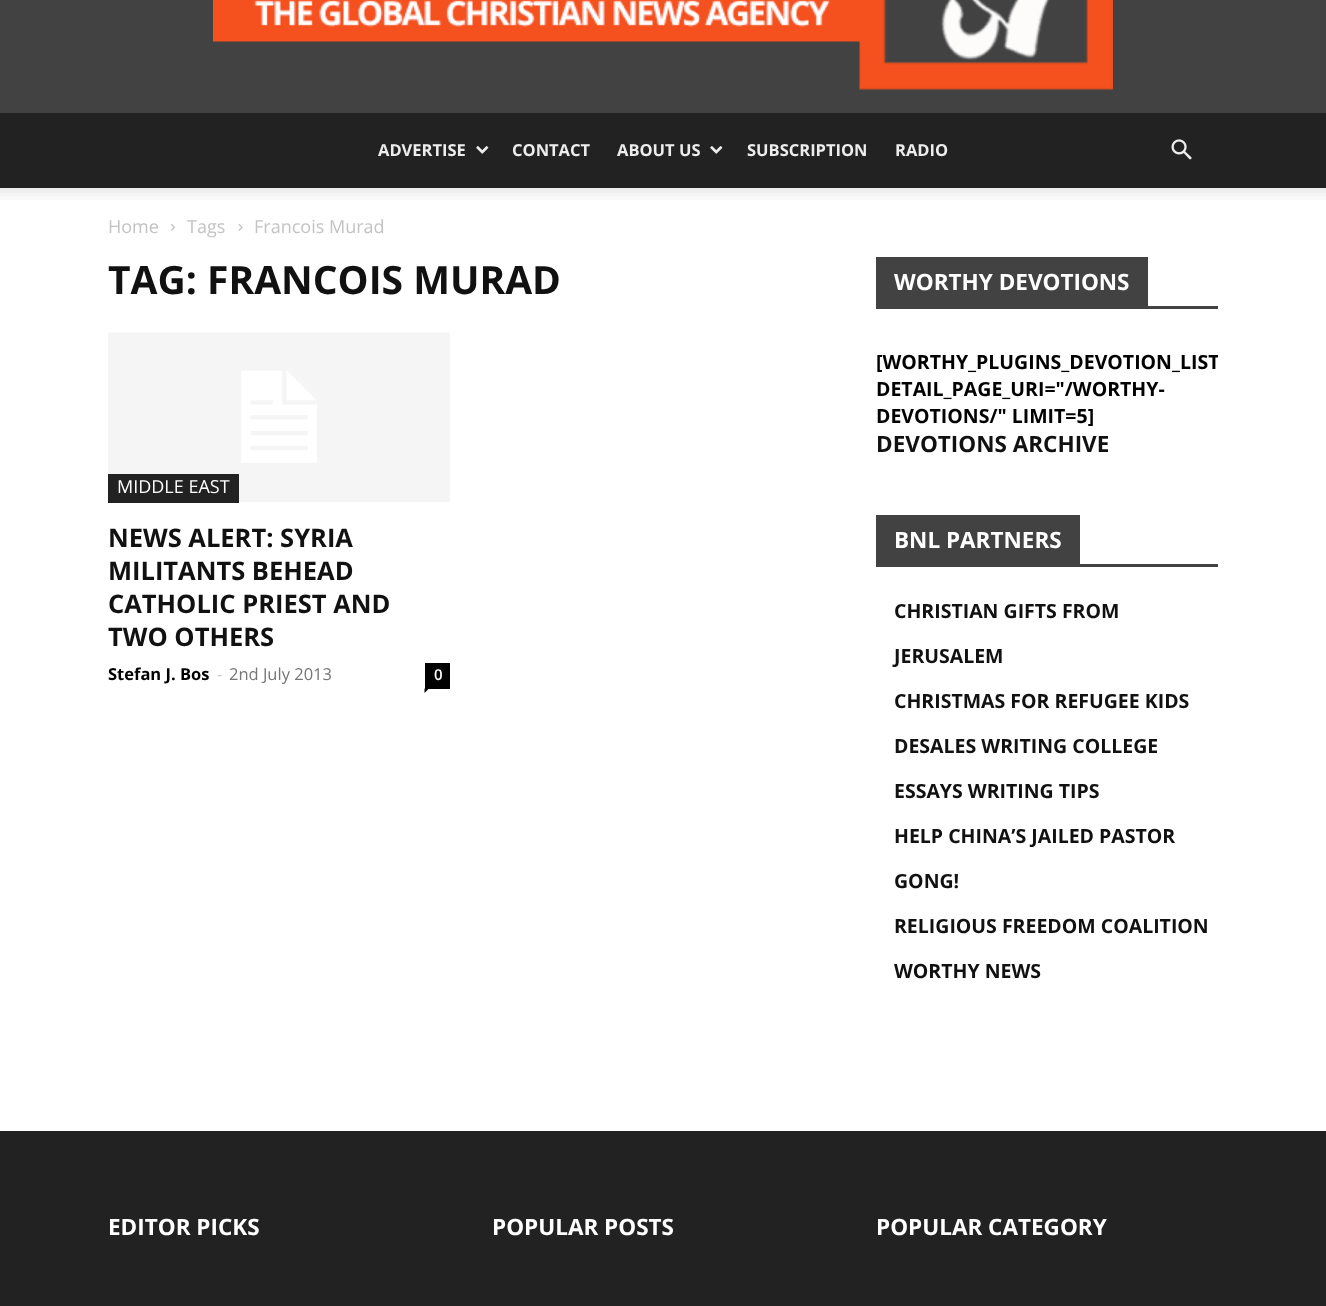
<svg xmlns="http://www.w3.org/2000/svg" width="1326" height="1306" viewBox="0 0 1326 1306">
  <defs>
    <clipPath id="clip1"><rect x="876" y="257" width="342" height="201"/></clipPath>
  </defs>
  <rect width="100%" height="100%" fill="rgb(255,255,255)"/>
  <rect x="0" y="0" width="1326" height="113" fill="rgb(66,66,66)"/>
  <image x="213" y="0" width="900" height="90" href="pic1.png"/>
  <rect x="0" y="113" width="1326" height="75" fill="rgb(34,34,34)"/>
  <text x="378" y="156" font-family="Open Sans" font-size="16.5" font-weight="bold" fill="rgb(237,237,237)">ADVERTISE</text>
  <image x="476" y="146" width="13" height="8" href="pic2.png"/>
  <g font-family="Open Sans" font-size="16.5" font-weight="bold" fill="rgb(237,237,237)">
    <text x="512" y="156">CONTACT</text>
    <text x="617" y="156">ABOUT US</text>
  </g>
  <image x="710" y="146" width="13" height="8" href="pic2.png"/>
  <g font-family="Open Sans" font-size="16.5" font-weight="bold" fill="rgb(237,237,237)">
    <text x="747" y="156">SUBSCRIPTION</text>
    <text x="895" y="156">RADIO</text>
  </g>
  <image x="1171" y="139" width="21" height="21" href="pic3.png"/>
  <image x="0" y="188" width="1326" height="12" href="pic4.png"/>
  <text x="108" y="233" font-family="Open Sans" font-size="18" fill="rgb(195,195,195)">Home</text>
  <image x="171" y="224" width="4" height="7" href="pic5.png"/>
  <text x="187" y="233" font-family="Open Sans" font-size="18" fill="rgb(195,195,195)">Tags</text>
  <image x="238" y="224" width="5" height="7" href="pic6.png"/>
  <text x="254" y="233" font-family="Open Sans" font-size="18" fill="rgb(195,195,195)">Francois Murad</text>
  <text x="108" y="294" font-family="Open Sans" font-size="39" font-weight="bold" fill="rgb(17,17,17)">TAG: FRANCOIS MURAD</text>
  <image x="108" y="332" width="342" height="170" href="pic7.png"/>
  <rect x="108" y="474" width="131" height="29" fill="rgb(34,34,34)"/>
  <text x="117" y="493" font-family="Open Sans" font-size="18" fill="rgb(255,255,255)">MIDDLE EAST</text>
  <g font-family="Open Sans" font-size="25.5" font-weight="bold" fill="rgb(17,17,17)">
    <text>
      <tspan x="108" y="547">NEWS ALERT: SYRIA</tspan>
      <tspan x="108" y="580">MILITANTS BEHEAD</tspan>
      <tspan x="108" y="613">CATHOLIC PRIEST AND</tspan>
      <tspan x="108" y="646">TWO OTHERS</tspan>
    </text>
  </g>
  <text x="108" y="680" font-family="Open Sans" font-size="16.5" font-weight="bold" fill="rgb(0,0,0)">Stefan J. Bos</text>
  <text x="217" y="680" font-family="Open Sans" font-size="16.5" fill="rgb(204,204,204)">-</text>
  <text x="229" y="680" font-family="Open Sans" font-size="16.5" fill="rgb(118,118,118)">2nd July 2013</text>
  <rect x="425" y="663" width="25" height="26" fill="rgb(0,0,0)"/>
  <text x="434" y="680" font-family="Open Sans" font-size="15" font-weight="600" fill="rgb(255,255,255)">0</text>
  <path d="M424.5 688.5H429L424.5 693Z" fill="rgb(0,0,0)"/>
  <rect x="876" y="306" width="342" height="3" fill="rgb(66,66,66)"/>
  <rect x="876" y="257" width="272" height="49" fill="rgb(66,66,66)"/>
  <text x="894" y="290" font-family="Open Sans" font-size="22.5" font-weight="bold" fill="rgb(255,255,255)">WORTHY DEVOTIONS</text>
  <g clip-path="url(#clip1)">
    <text x="876" y="369" font-family="Open Sans" font-size="19.5" font-weight="bold" fill="rgb(0,0,0)">[WORTHY_PLUGINS_DEVOTION_LIST</text>
  </g>
  <g font-family="Open Sans" font-size="19.5" font-weight="bold" fill="rgb(0,0,0)">
    <text>
      <tspan x="876" y="396">DETAIL_PAGE_URI="/WORTHY-</tspan>
      <tspan x="876" y="423">DEVOTIONS/" LIMIT=5]</tspan>
    </text>
  </g>
  <text x="876" y="452" font-family="Open Sans" font-size="22.5" font-weight="bold" fill="rgb(17,17,17)">DEVOTIONS ARCHIVE</text>
  <rect x="876" y="564" width="342" height="3" fill="rgb(66,66,66)"/>
  <rect x="876" y="515" width="204" height="49" fill="rgb(66,66,66)"/>
  <text x="894" y="548" font-family="Open Sans" font-size="22.5" font-weight="bold" fill="rgb(255,255,255)">BNL PARTNERS</text>
  <g font-family="Open Sans" font-size="19.5" font-weight="bold" fill="rgb(17,17,17)">
    <text x="894" y="618">CHRISTIAN GIFTS FROM</text>
    <text x="894" y="663">JERUSALEM</text>
    <text x="894" y="708">CHRISTMAS FOR REFUGEE KIDS</text>
    <text x="894" y="753">DESALES WRITING COLLEGE</text>
    <text x="894" y="798">ESSAYS WRITING TIPS</text>
    <text x="894" y="843">HELP CHINA’S JAILED PASTOR</text>
    <text x="894" y="888">GONG!</text>
    <text x="894" y="933">RELIGIOUS FREEDOM COALITION</text>
    <text x="894" y="978">WORTHY NEWS</text>
  </g>
  <rect x="0" y="1131" width="1326" height="175" fill="rgb(34,34,34)"/>
  <g font-family="Open Sans" font-size="22.5" font-weight="bold" fill="rgb(255,255,255)">
    <text x="108" y="1235">EDITOR PICKS</text>
    <text x="492" y="1235">POPULAR POSTS</text>
    <text x="876" y="1235">POPULAR CATEGORY</text>
  </g>
</svg>
